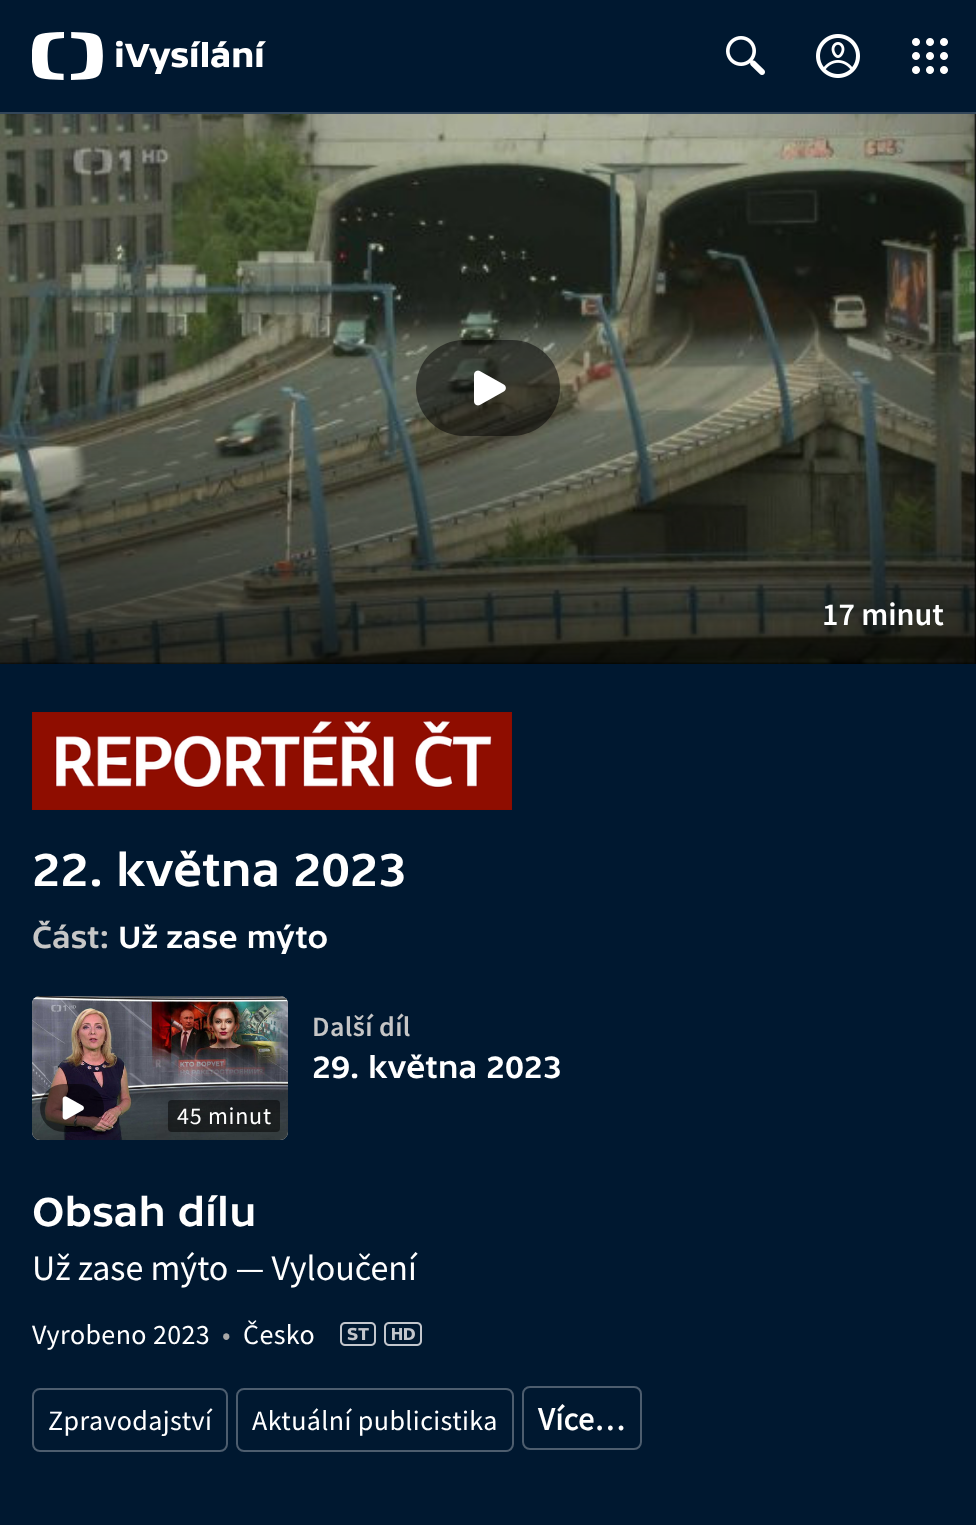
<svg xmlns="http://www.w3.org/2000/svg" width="976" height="1525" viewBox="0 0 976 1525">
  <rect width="100%" height="100%" fill="rgb(0,24,48)"/>
  <rect x="0" y="112" width="976" height="2" fill="rgb(51,70,89)"/>
  <image x="32" y="32" width="234" height="48" href="pic1.png"/>
  <image x="726" y="36" width="39" height="39" href="pic2.png"/>
  <image x="816" y="34" width="44" height="44" href="pic3.png"/>
  <image x="912" y="38" width="36" height="36" href="pic4.png"/>
  <image x="0" y="114" width="976" height="550" href="pic5.png"/>
  <rect x="416" y="340" width="144" height="96" rx="48" fill="rgba(0,0,0,0.5)"/>
  <image x="474" y="370" width="32" height="36" href="pic6.png"/>
  <text x="822" y="625" font-family="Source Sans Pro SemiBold" font-size="32" font-weight="600" fill="rgb(255,255,255)">17 minut</text>
  <image x="32" y="712" width="480" height="98" href="pic7.png"/>
  <text x="32" y="886" font-family="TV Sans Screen" font-size="48" fill="rgb(255,255,255)">22. května 2023</text>
  <text x="32" y="948" font-family="TV Sans Screen" font-size="32" fill="rgb(198,198,198)">Část:</text>
  <text x="118" y="948" font-family="TV Sans Screen" font-size="32" fill="rgb(255,255,255)">Už zase mýto</text>
  <text x="312" y="1036" font-family="Source Sans Pro SemiBold" font-size="28" font-weight="600" letter-spacing="0.4" fill="rgb(198,198,198)">Další díl</text>
  <text x="312" y="1078" font-family="TV Sans Screen" font-size="32" fill="rgb(255,255,255)">29. května 2023</text>
  <rect x="32" y="996" width="256" height="144" rx="8" fill="rgb(224,224,224)"/>
  <image x="32" y="996" width="256" height="144" href="pic8.png"/>
  <rect x="40" y="1084" width="64" height="48" rx="24" fill="rgba(0,0,0,0.5)"/>
  <image x="62" y="1096" width="22" height="24" href="pic9.png"/>
  <rect x="168" y="1100" width="112" height="32" rx="4" fill="rgba(0,0,0,0.5)"/>
  <text x="177" y="1124" font-family="Source Sans Pro" font-size="24" letter-spacing="0.75" fill="rgb(255,255,255)">45 minut</text>
  <text x="32" y="1226" font-family="TV Sans Screen" font-size="42" fill="rgb(255,255,255)">Obsah dílu</text>
  <text x="32" y="1280" font-family="Source Sans Pro" font-size="36" fill="rgb(255,255,255)">Už zase mýto — Vyloučení</text>
  <text x="32" y="1344" font-family="Source Sans Pro" font-size="28" letter-spacing="0.4" fill="rgb(255,255,255)">Vyrobeno 2023</text>
  <text x="222" y="1344" font-family="Source Sans Pro" font-size="28" letter-spacing="0.4" fill="rgb(168,168,168)">•</text>
  <text x="243" y="1344" font-family="Source Sans Pro" font-size="28" letter-spacing="0.4" fill="rgb(255,255,255)">Česko</text>
  <image x="340" y="1322" width="36" height="24" href="pic10.png"/>
  <image x="384" y="1322" width="38" height="24" href="pic11.png"/>
  <rect x="33" y="1389" width="194" height="62" rx="7" fill="none" stroke="rgb(77,93,110)" stroke-width="2"/>
  <text x="48" y="1430" font-family="Source Sans Pro" font-size="28" letter-spacing="0.4" fill="rgb(255,255,255)">Zpravodajství</text>
  <rect x="237" y="1389" width="276" height="62" rx="7" fill="none" stroke="rgb(77,93,110)" stroke-width="2"/>
  <text x="252" y="1430" font-family="Source Sans Pro" font-size="28" letter-spacing="0.4" fill="rgb(255,255,255)">Aktuální publicistika</text>
  <rect x="523" y="1387" width="118" height="62" rx="7" fill="none" stroke="rgb(77,93,110)" stroke-width="2"/>
  <text x="538" y="1430" font-family="Source Sans Pro" font-size="32" font-weight="bold" letter-spacing="0.4" fill="rgb(255,255,255)">Více…</text>
</svg>
